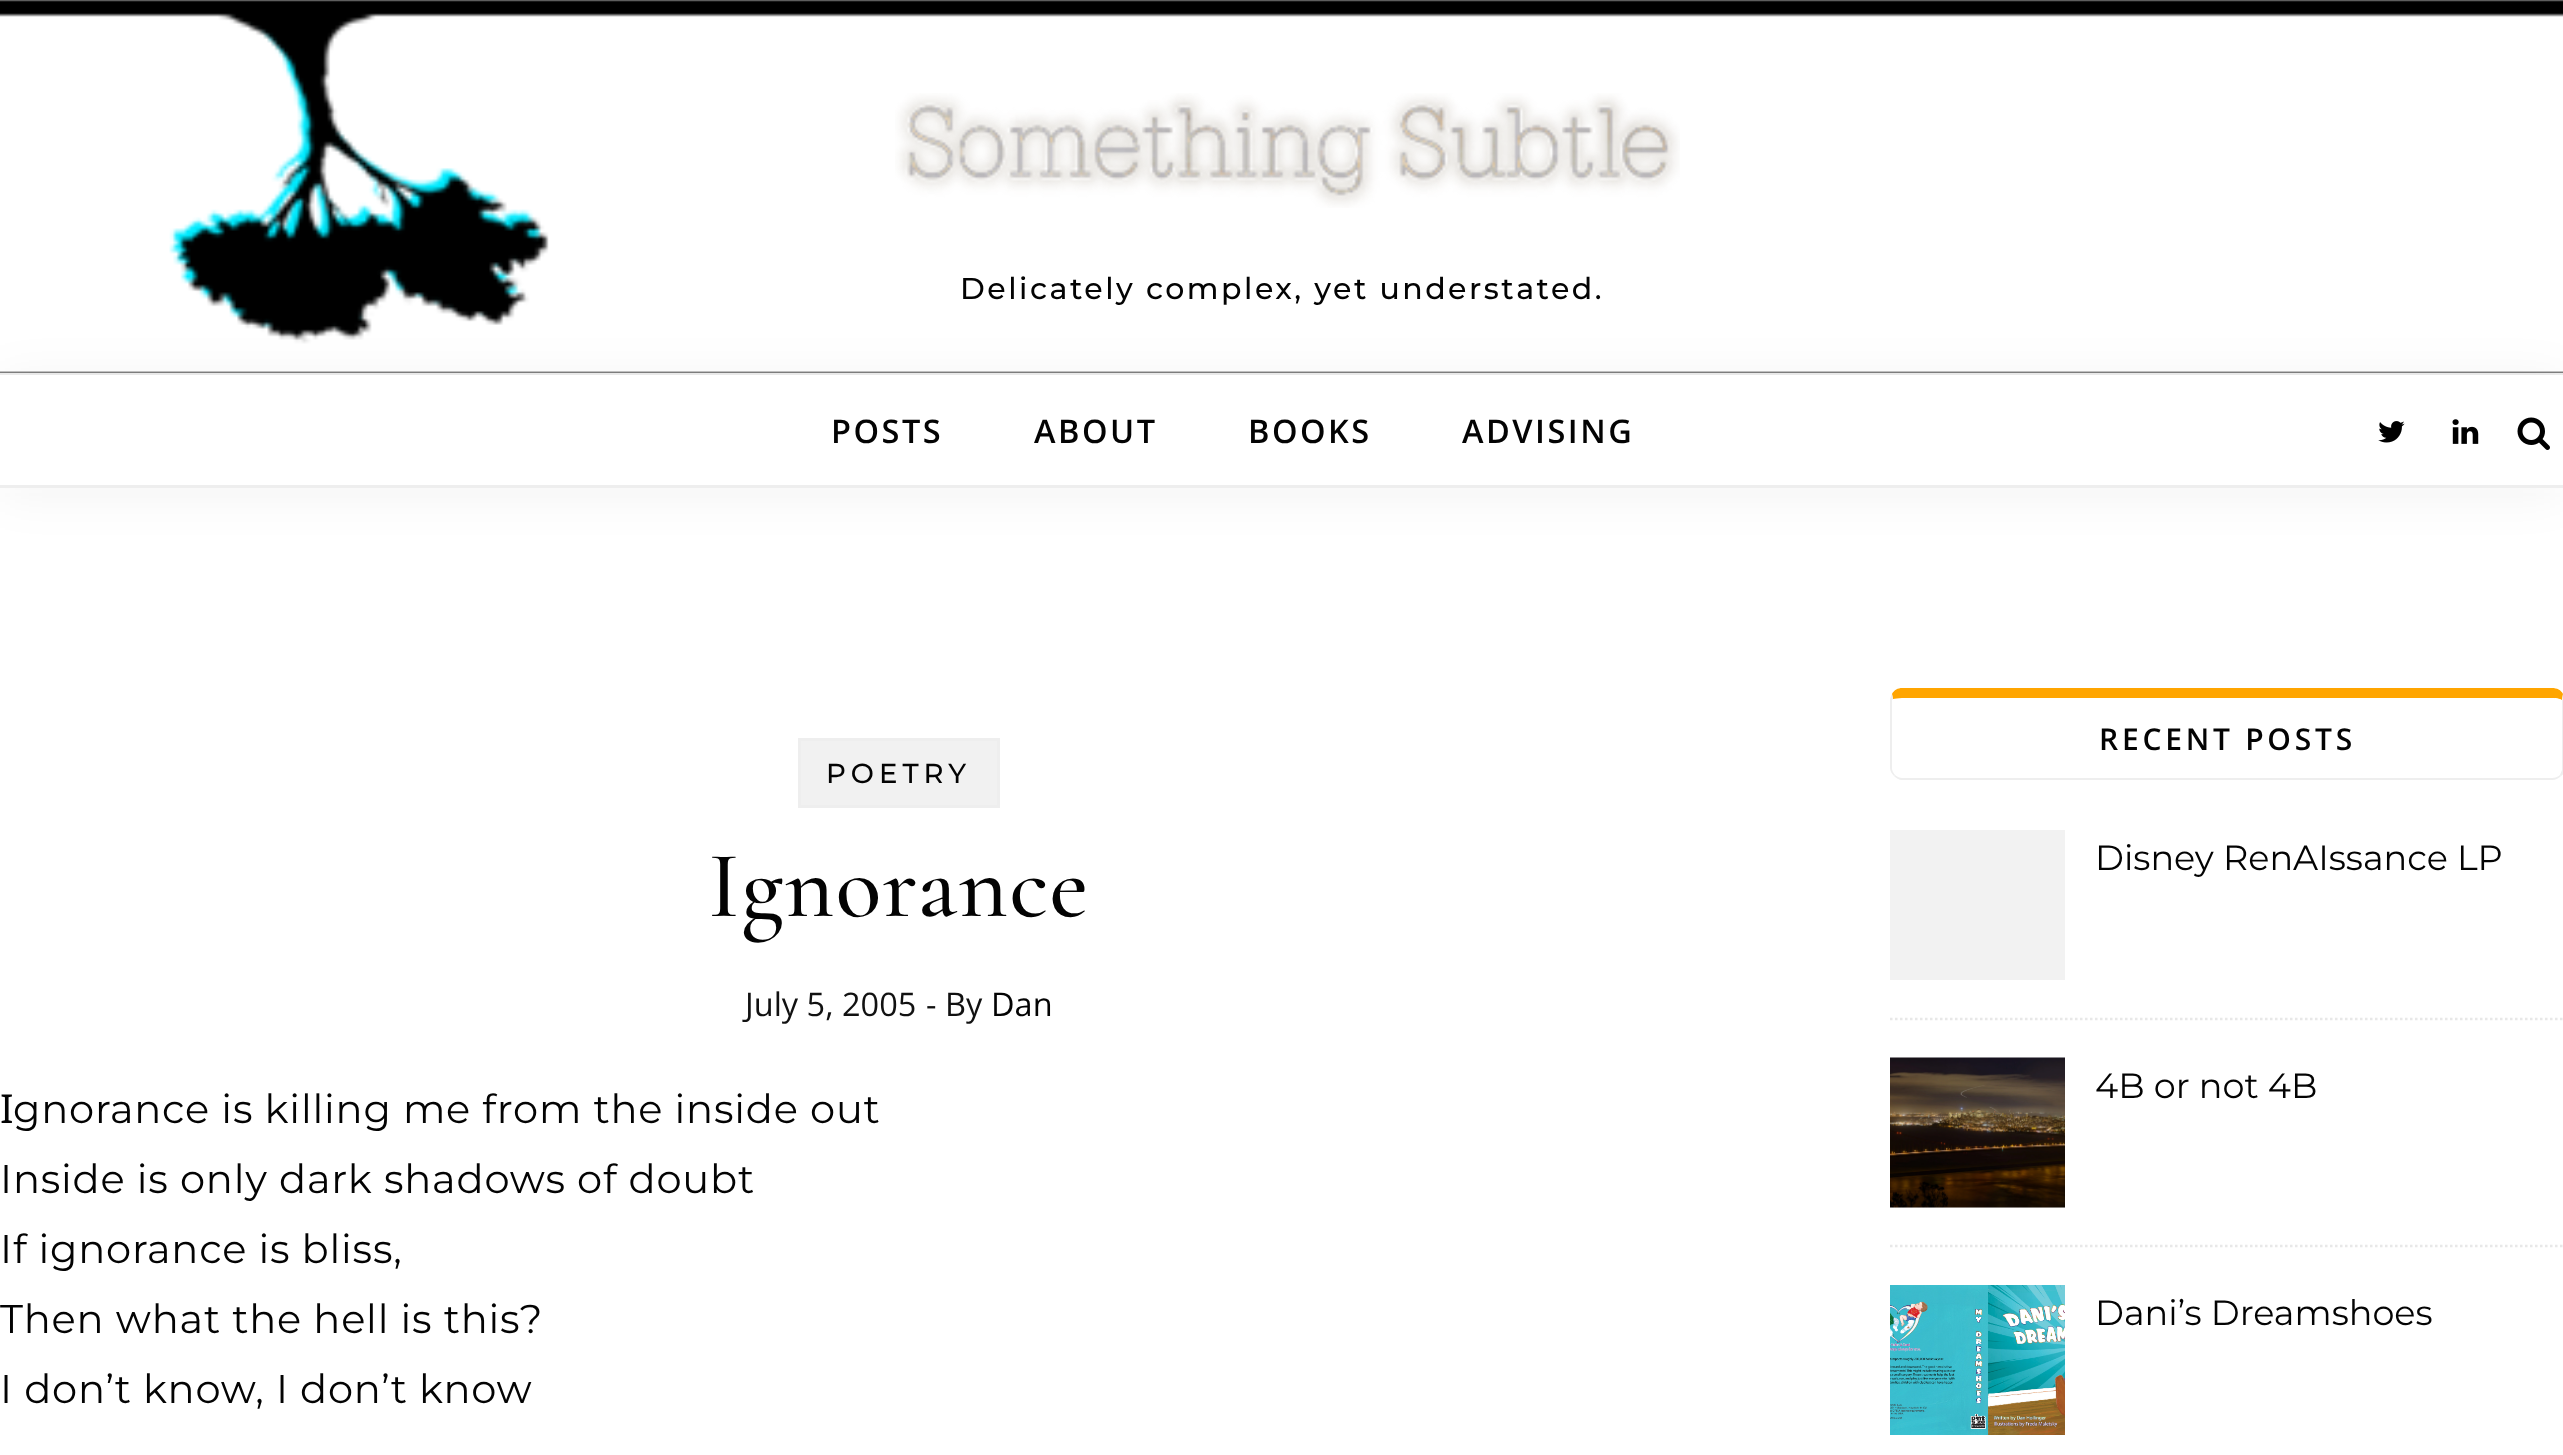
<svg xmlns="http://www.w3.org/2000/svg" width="2563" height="1455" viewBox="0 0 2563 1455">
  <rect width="100%" height="100%" fill="rgb(255,255,255)"/>
  <image x="0" y="0" width="2563" height="373" href="pic1.png"/>
  <rect x="0" y="373" width="2563" height="2" fill="rgb(238,238,238)"/>
  <image x="895" y="93" width="785" height="115" href="pic2.png"/>
  <text x="960" y="299" font-family="'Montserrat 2'" font-size="30" font-weight="100" letter-spacing="2.5" fill="rgb(3,3,3)">Delicately complex, yet understated.</text>
  <rect x="0" y="380" width="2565" height="113" fill="rgba(14,14,19,0.05)" filter="blur(25px)"/>
  <rect x="0" y="375" width="2563" height="110" fill="rgb(255,255,255)"/>
  <rect x="0" y="485" width="2563" height="3" fill="rgb(238,238,238)"/>
  <g font-family="Open Sans" font-size="32.5" font-weight="600" letter-spacing="2.5" fill="rgb(3,3,3)">
    <text x="831" y="443">POSTS</text>
    <text x="1034" y="443">ABOUT</text>
    <text x="1248" y="443">BOOKS</text>
    <text x="1462" y="443">ADVISING</text>
  </g>
  <image x="2378" y="421" width="27" height="22" href="pic3.png"/>
  <image x="2452" y="419" width="27" height="25" href="pic4.png"/>
  <image x="2517" y="417" width="33" height="33" href="pic5.png"/>
  <rect x="799.5" y="739.5" width="199" height="67" fill="rgb(241,241,241)" stroke="rgb(238,238,238)" stroke-width="3"/>
  <text x="826" y="783" font-family="'Montserrat 2'" font-size="27.5" font-weight="100" letter-spacing="5" fill="rgb(3,3,3)">POETRY</text>
  <text x="708" y="916" font-family="Cormorant Garamond" font-size="95" font-weight="500" letter-spacing="1.25" fill="rgb(3,3,3)">Ignorance</text>
  <g font-family="Open Sans" font-size="32.5" fill="rgb(17,17,17)">
    <text x="745" y="1016">July 5, 2005</text>
    <text x="926" y="1016">- By</text>
  </g>
  <text x="991" y="1016" font-family="Open Sans" font-size="32.5" fill="rgb(3,3,3)">Dan</text>
  <text x="0" y="1123" font-family="Noto Sans" font-size="40" letter-spacing="0.8" fill="rgb(3,3,3)">I</text>
  <g font-family="Montserrat" font-size="40" font-weight="100" letter-spacing="0.8" fill="rgb(3,3,3)">
    <text x="13" y="1123">gnorance is killing me from the inside out</text>
    <text>
      <tspan x="0" y="1193">Inside is only dark shadows of doubt</tspan>
      <tspan x="0" y="1263">If ignorance is bliss,</tspan>
      <tspan x="0" y="1333">Then what the hell is this?</tspan>
      <tspan x="0" y="1403">I don’t know, I don’t know</tspan>
    </text>
  </g>
  <path d="M1902 688C1898 688 1894 690 1892 694L1893 699C1895 699 1898 698 1902 698H2552C2558 698 2561 699 2562 700L2563 694C2561 690 2557 688 2552 688Z" fill="rgb(255,165,0)"/>
  <path d="M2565 768V700C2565 698 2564 696 2563 694L2562 700V770L2560 775L2561 776C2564 774 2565 771 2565 768Z" fill="rgb(238,238,238)"/>
  <path d="M1902 780H2552C2556 780 2559 778 2561 776L2560 775C2558 777 2555 778 2552 778H1902C1900 778 1897 777 1895 775L1894 776C1896 778 1899 780 1902 780Z" fill="rgb(238,238,238)"/>
  <path d="M1890 700V768C1890 771 1892 774 1894 776L1895 775C1893 773 1892 770 1892 768V700L1893 699L1892 694C1891 696 1890 698 1890 700Z" fill="rgb(238,238,238)"/>
  <text x="2099" y="750" font-family="Open Sans" font-size="30" font-weight="600" letter-spacing="3.75" fill="rgb(3,3,3)">RECENT POSTS</text>
  <path d="M1890 1019H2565" fill="none" stroke="rgb(232,232,232)" stroke-width="2.5" stroke-dasharray="2.5 2.5"/>
  <rect x="1890" y="830" width="175" height="150" fill="rgb(242,242,242)"/>
  <text x="2095" y="870" font-family="Montserrat" font-size="35" font-weight="100" fill="rgb(3,3,3)">Disney RenAIssance LP</text>
  <path d="M1890 1246H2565" fill="none" stroke="rgb(232,232,232)" stroke-width="2.5" stroke-dasharray="2.5 2.5"/>
  <rect x="1890" y="1207" width="175" height="1" fill="rgb(242,242,242)"/>
  <image x="1890" y="1057" width="175" height="151" href="pic6.png"/>
  <text x="2095" y="1098" font-family="Montserrat" font-size="35" font-weight="100" fill="rgb(3,3,3)">4B or not 4B</text>
  <image x="1890" y="1285" width="175" height="150" href="pic7.png"/>
  <text x="2095" y="1325" font-family="Montserrat" font-size="35" font-weight="100" fill="rgb(3,3,3)">Dani’s Dreamshoes</text>
</svg>
